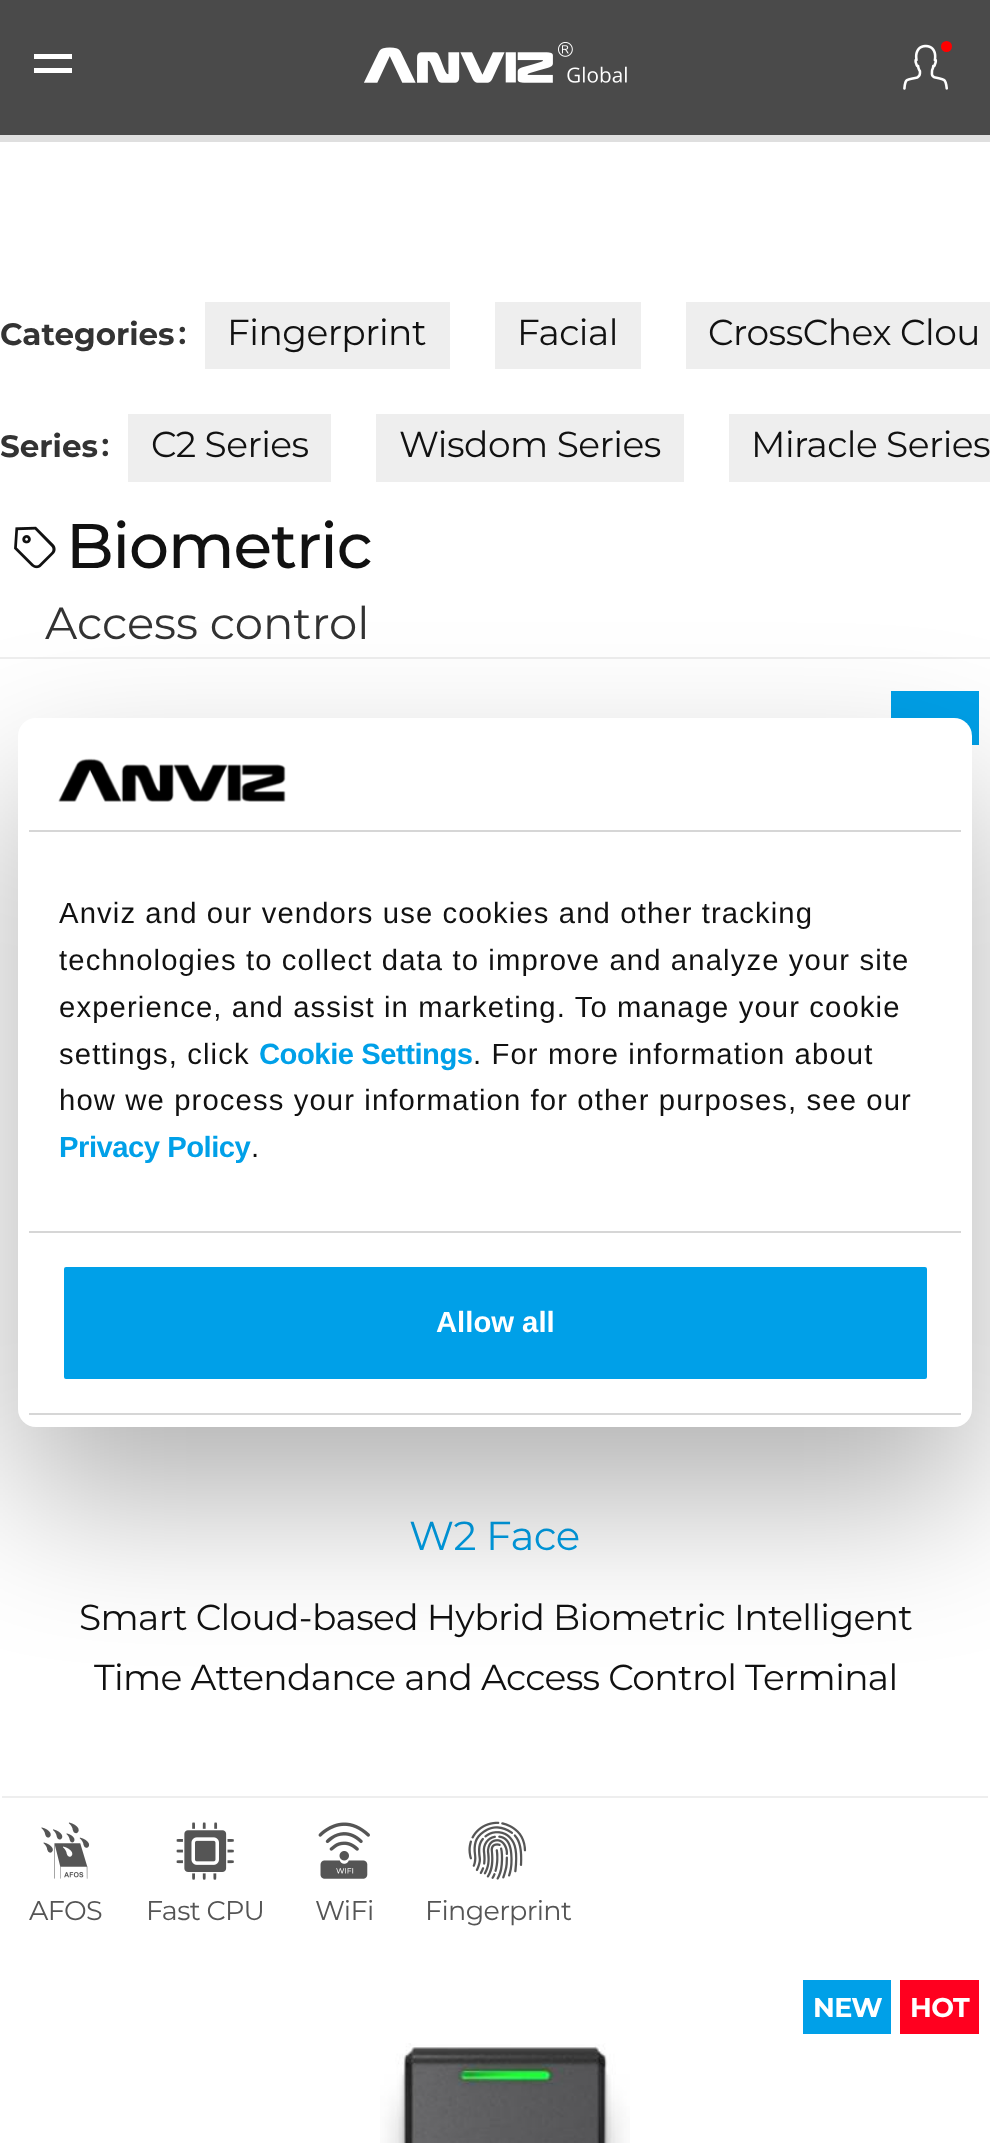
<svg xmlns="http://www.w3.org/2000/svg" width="990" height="2143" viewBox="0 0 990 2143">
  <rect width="100%" height="100%" fill="rgb(255,255,255)"/>
  <rect x="0" y="0" width="990" height="135" fill="rgb(74,74,74)"/>
  <rect x="34" y="54" width="38" height="5" fill="rgb(255,255,255)"/>
  <rect x="34" y="68" width="38" height="5" fill="rgb(255,255,255)"/>
  <image x="364" y="42" width="263" height="41" href="pic1.png"/>
  <image x="903" y="44" width="45" height="46" href="pic2.png"/>
  <circle cx="946.5" cy="46.5" r="5.5" fill="rgb(255,0,0)"/>
  <rect x="0" y="135" width="990" height="7" fill="rgb(223,223,223)"/>
  <text x="0" y="345" font-family="Montserrat" font-size="31" font-weight="bold" fill="rgb(51,51,51)">Categories</text>
  <text x="174" y="345" font-family="Noto Serif SC" font-size="31" font-weight="bold" fill="rgb(51,51,51)">：</text>
  <rect x="205" y="302" width="245" height="67" fill="rgb(238,238,238)"/>
  <text x="227" y="345" font-family="Montserrat" font-size="36" font-weight="100" letter-spacing="-0.5" fill="rgb(17,17,17)">Fingerprint</text>
  <rect x="495" y="302" width="146" height="67" fill="rgb(238,238,238)"/>
  <text x="517" y="345" font-family="Montserrat" font-size="36" font-weight="100" letter-spacing="-0.5" fill="rgb(17,17,17)">Facial</text>
  <rect x="686" y="302" width="304" height="67" fill="rgb(238,238,238)"/>
  <text x="708" y="345" font-family="Montserrat" font-size="36" font-weight="100" letter-spacing="-0.5" fill="rgb(17,17,17)">CrossChex Clou</text>
  <text x="0" y="457" font-family="Montserrat" font-size="31" font-weight="bold" fill="rgb(51,51,51)">Series</text>
  <text x="97" y="457" font-family="Noto Serif SC" font-size="31" font-weight="bold" fill="rgb(51,51,51)">：</text>
  <rect x="128" y="414" width="203" height="68" fill="rgb(238,238,238)"/>
  <text x="151" y="457" font-family="Montserrat" font-size="36" font-weight="100" letter-spacing="-0.5" fill="rgb(17,17,17)">C2 Series</text>
  <rect x="376" y="414" width="308" height="68" fill="rgb(238,238,238)"/>
  <text x="399" y="457" font-family="Montserrat" font-size="36" font-weight="100" letter-spacing="-0.5" fill="rgb(17,17,17)">Wisdom Series</text>
  <rect x="729" y="414" width="261" height="68" fill="rgb(238,238,238)"/>
  <text x="751" y="457" font-family="Montserrat" font-size="36" font-weight="100" letter-spacing="-0.5" fill="rgb(17,17,17)">Miracle Series</text>
  <rect x="0" y="657" width="990" height="2" fill="rgb(238,238,238)"/>
  <image x="14" y="526" width="42" height="43" href="pic3.png"/>
  <text x="66" y="568" font-family="Montserrat" font-size="63" font-weight="500" letter-spacing="-1.1" fill="rgb(17,17,17)">Biometric</text>
  <text x="45" y="639" font-family="Montserrat" font-size="45" font-weight="100" fill="rgb(51,51,51)">Access control</text>
  <rect x="891" y="691" width="88" height="54" fill="rgb(0,160,232)"/>
  <text x="409" y="1550" font-family="Montserrat" font-size="40.5" font-weight="100" letter-spacing="-0.5" fill="rgb(0,160,232)">W2 Face</text>
  <g font-family="Montserrat" font-size="36" font-weight="100" letter-spacing="-0.65" fill="rgb(17,17,17)">
    <text x="79" y="1630">Smart Cloud-based Hybrid Biometric Intelligent</text>
    <text x="94" y="1690">Time Attendance and Access Control Terminal</text>
  </g>
  <rect x="2" y="1796" width="986" height="2" fill="rgb(238,238,238)"/>
  <image x="41" y="1822" width="49" height="57" href="pic4.png"/>
  <text x="29" y="1920" font-family="Montserrat" font-size="27" font-weight="100" letter-spacing="-0.65" fill="rgb(85,85,85)">AFOS</text>
  <image x="176" y="1822" width="58" height="58" href="pic5.png"/>
  <text x="146" y="1920" font-family="Montserrat" font-size="27" font-weight="100" letter-spacing="-0.65" fill="rgb(85,85,85)">Fast CPU</text>
  <image x="318" y="1822" width="52" height="57" href="pic6.png"/>
  <text x="315" y="1920" font-family="Montserrat" font-size="27" font-weight="100" letter-spacing="-0.65" fill="rgb(85,85,85)">WiFi</text>
  <image x="468" y="1821" width="59" height="59" href="pic7.png"/>
  <text x="425" y="1920" font-family="Montserrat" font-size="27" font-weight="100" letter-spacing="-0.65" fill="rgb(85,85,85)">Fingerprint</text>
  <rect x="803" y="1980" width="88" height="54" fill="rgb(0,160,232)"/>
  <text x="813" y="2017" font-family="Montserrat" font-size="27" font-weight="bold" letter-spacing="-0.65" fill="rgb(255,255,255)">NEW</text>
  <rect x="900" y="1980" width="79" height="54" fill="rgb(255,0,31)"/>
  <text x="910" y="2017" font-family="Montserrat" font-size="27" font-weight="bold" letter-spacing="-0.65" fill="rgb(255,255,255)">HOT</text>
  <image x="380" y="2043" width="250" height="100" href="pic8.png"/>
  <rect x="18" y="790" width="954" height="709" rx="18" fill="rgba(0,0,0,0.3)" filter="blur(76.5px)"/>
  <rect x="18" y="718" width="954" height="709" rx="18" fill="rgb(255,255,255)"/>
  <rect x="29" y="830" width="932" height="2" fill="rgb(214,214,214)"/>
  <image x="58" y="758" width="228" height="44" href="pic9.png"/>
  <rect x="29" y="1231" width="932" height="2" fill="rgb(214,214,214)"/>
  <g font-family="Liberation Sans" font-size="29.25" letter-spacing="1.12" fill="rgb(17,17,17)">
    <text>
      <tspan x="59" y="923">Anviz and our vendors use cookies and other tracking</tspan>
      <tspan x="59" y="970">technologies to collect data to improve and analyze your site</tspan>
      <tspan x="59" y="1017">experience, and assist in marketing. To manage your cookie</tspan>
      <tspan x="59" y="1064">settings, click</tspan>
    </text>
  </g>
  <text x="259" y="1064" font-family="Liberation Sans" font-size="29.25" font-weight="bold" letter-spacing="-0.5" fill="rgb(0,160,232)">Cookie Settings</text>
  <g font-family="Liberation Sans" font-size="29.25" letter-spacing="1.12" fill="rgb(17,17,17)">
    <text x="473" y="1064">. For more information about</text>
    <text x="59" y="1110">how we process your information for other purposes, see our</text>
  </g>
  <text x="59" y="1157" font-family="Liberation Sans" font-size="29.25" font-weight="bold" letter-spacing="-0.5" fill="rgb(0,160,232)">Privacy Policy</text>
  <text x="251" y="1157" font-family="Liberation Sans" font-size="29.25" letter-spacing="1.12" fill="rgb(17,17,17)">.</text>
  <rect x="29" y="1413" width="932" height="2" fill="rgb(214,214,214)"/>
  <rect x="61.5" y="1264.5" width="868" height="117" rx="4.5" fill="rgb(0,160,232)" stroke="rgb(255,255,255)" stroke-width="5"/>
  <text x="436" y="1332" font-family="Liberation Sans" font-size="29.25" font-weight="bold" fill="rgb(255,255,255)">Allow all</text>
</svg>
